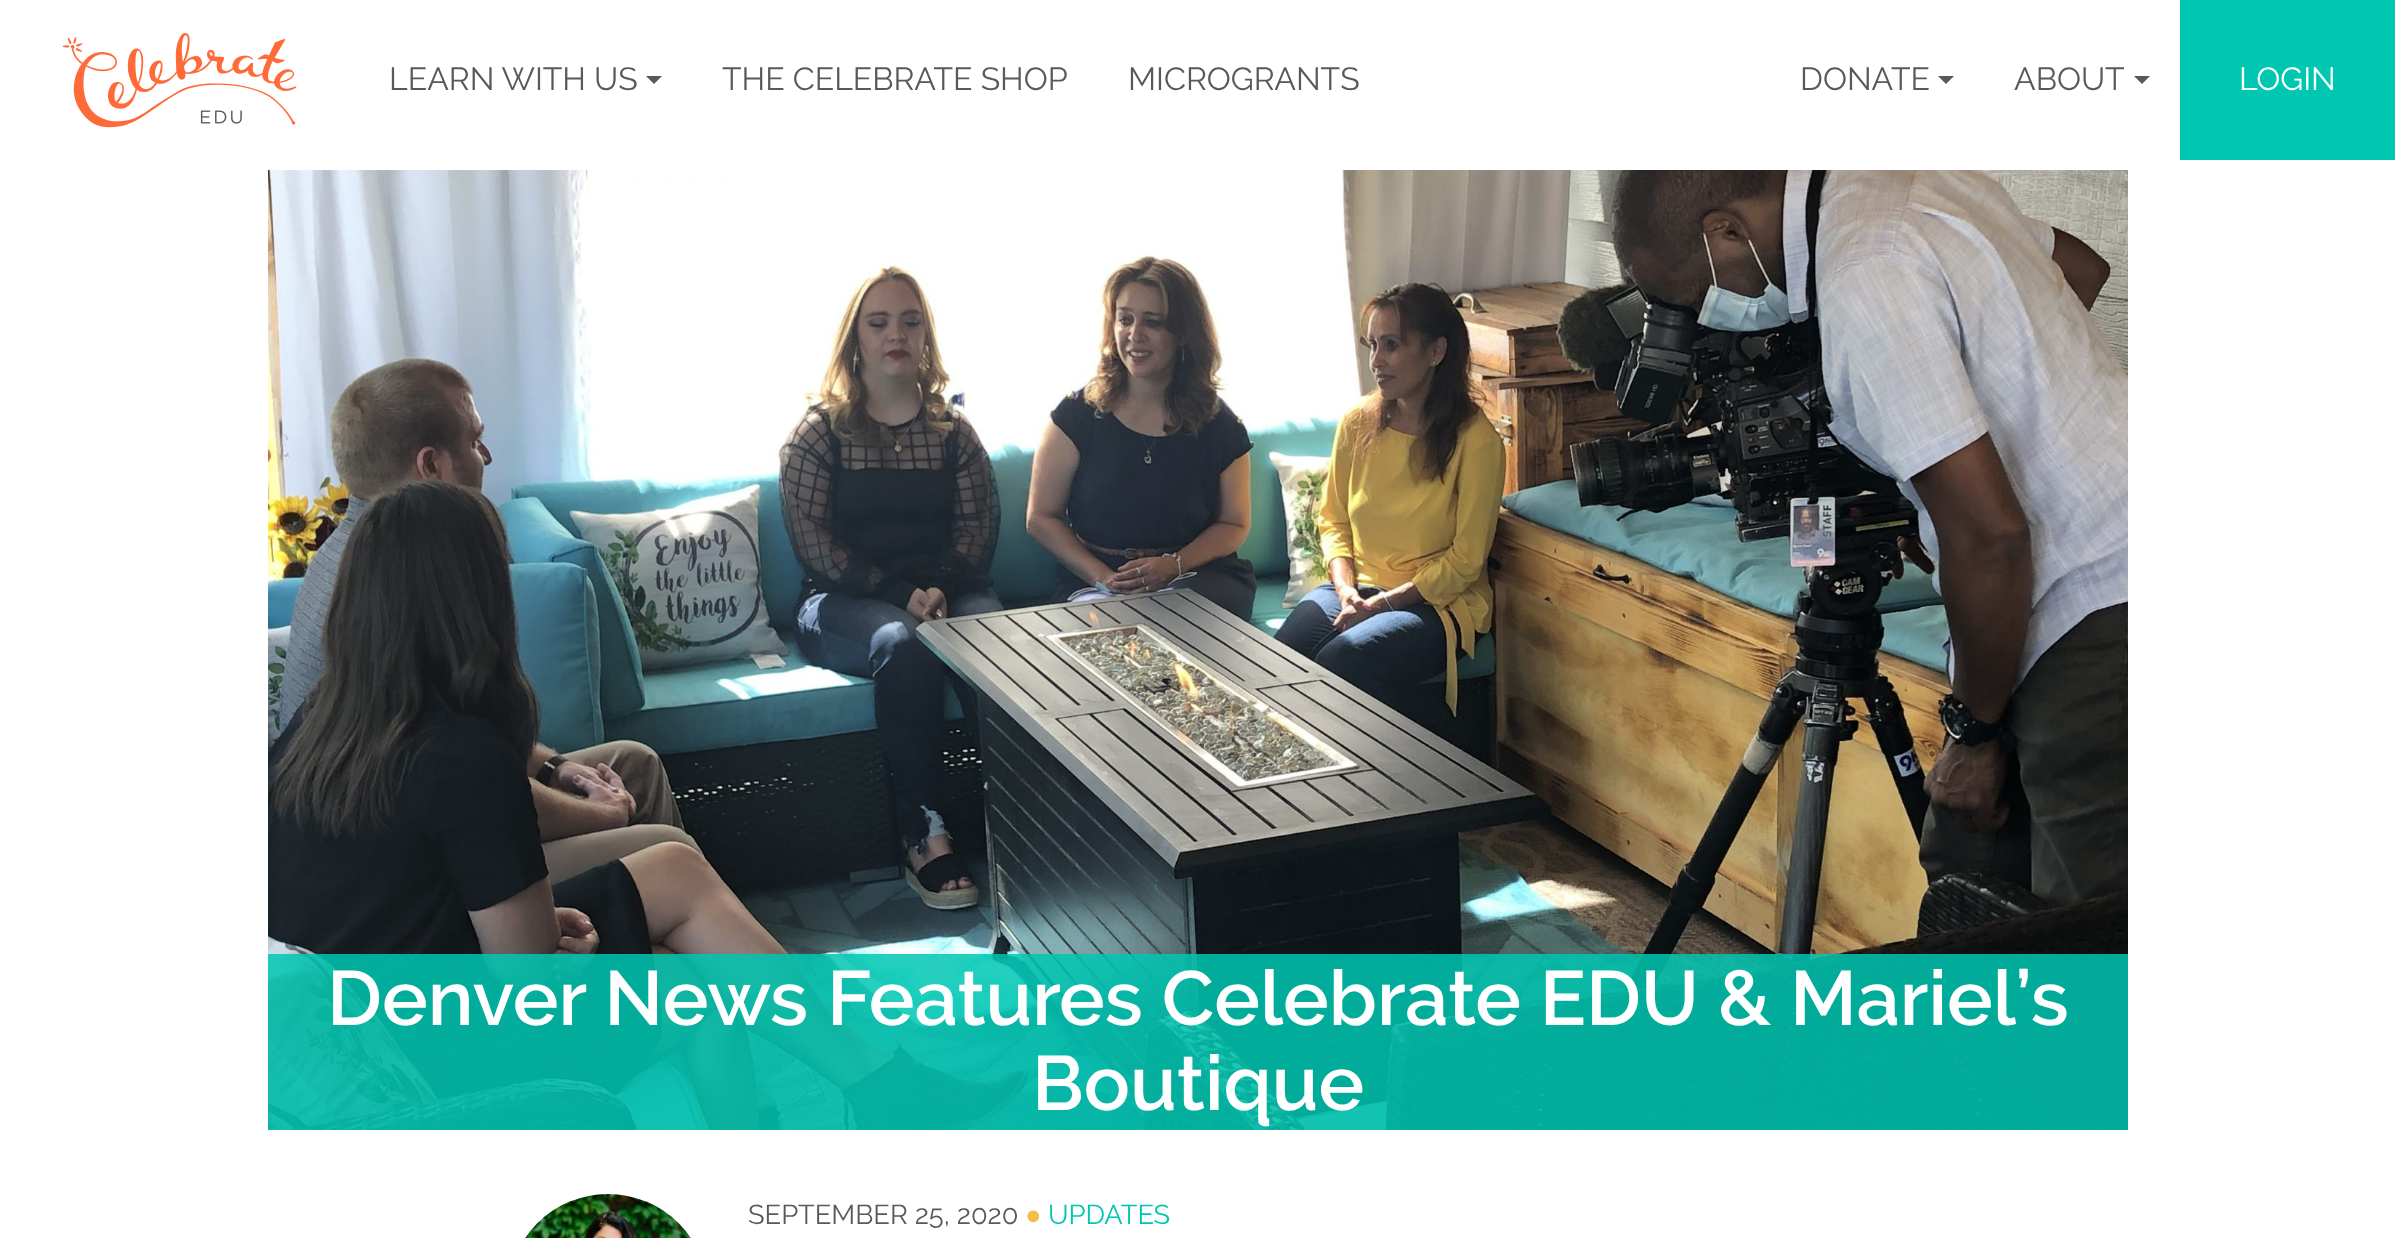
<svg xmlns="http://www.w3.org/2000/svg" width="2395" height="1238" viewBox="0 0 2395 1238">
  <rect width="100%" height="100%" fill="rgb(255,255,255)"/>
  <image x="62" y="33" width="235" height="95" href="pic1.png"/>
  <text x="389" y="90" font-family="Raleway" font-size="32" fill="rgb(89,89,91)">LEARN WITH US</text>
  <path d="M646 76H662L654 84Z" fill="rgb(89,89,91)"/>
  <g font-family="Raleway" font-size="32" fill="rgb(89,89,91)">
    <text x="722" y="90">THE CELEBRATE SHOP</text>
    <text x="1128" y="90">MICROGRANTS</text>
    <text x="1800" y="90">DONATE</text>
  </g>
  <path d="M1938 76H1954L1946 84Z" fill="rgb(89,89,91)"/>
  <text x="2014" y="90" font-family="Raleway" font-size="32" fill="rgb(89,89,91)">ABOUT</text>
  <path d="M2134 76H2150L2142 84Z" fill="rgb(89,89,91)"/>
  <rect x="2180" y="0" width="215" height="160" fill="rgb(0,199,177)"/>
  <text x="2239" y="90" font-family="Raleway" font-size="32" fill="rgb(255,255,255)">LOGIN</text>
  <image x="268" y="170" width="1860" height="960" href="pic2.png"/>
  <rect x="268" y="954" width="1860" height="176" fill="rgba(0,199,177,0.85)"/>
  <g font-family="Raleway" font-size="76.8" font-weight="600" fill="rgb(255,255,255)">
    <text x="327" y="1025">Denver News Features Celebrate EDU &amp; Mariel’s</text>
    <text x="1032" y="1110">Boutique</text>
  </g>
  <image x="525" y="1194" width="166" height="44" href="pic3.png"/>
  <text x="748" y="1224" font-family="Raleway" font-size="27.25" fill="rgb(89,89,91)">SEPTEMBER 25, 2020</text>
  <text x="1025" y="1224" font-family="Liberation Sans" font-size="27.25" fill="rgb(241,190,72)">●</text>
  <text x="1048" y="1224" font-family="Raleway" font-size="27.25" fill="rgb(0,199,177)">UPDATES</text>
</svg>
